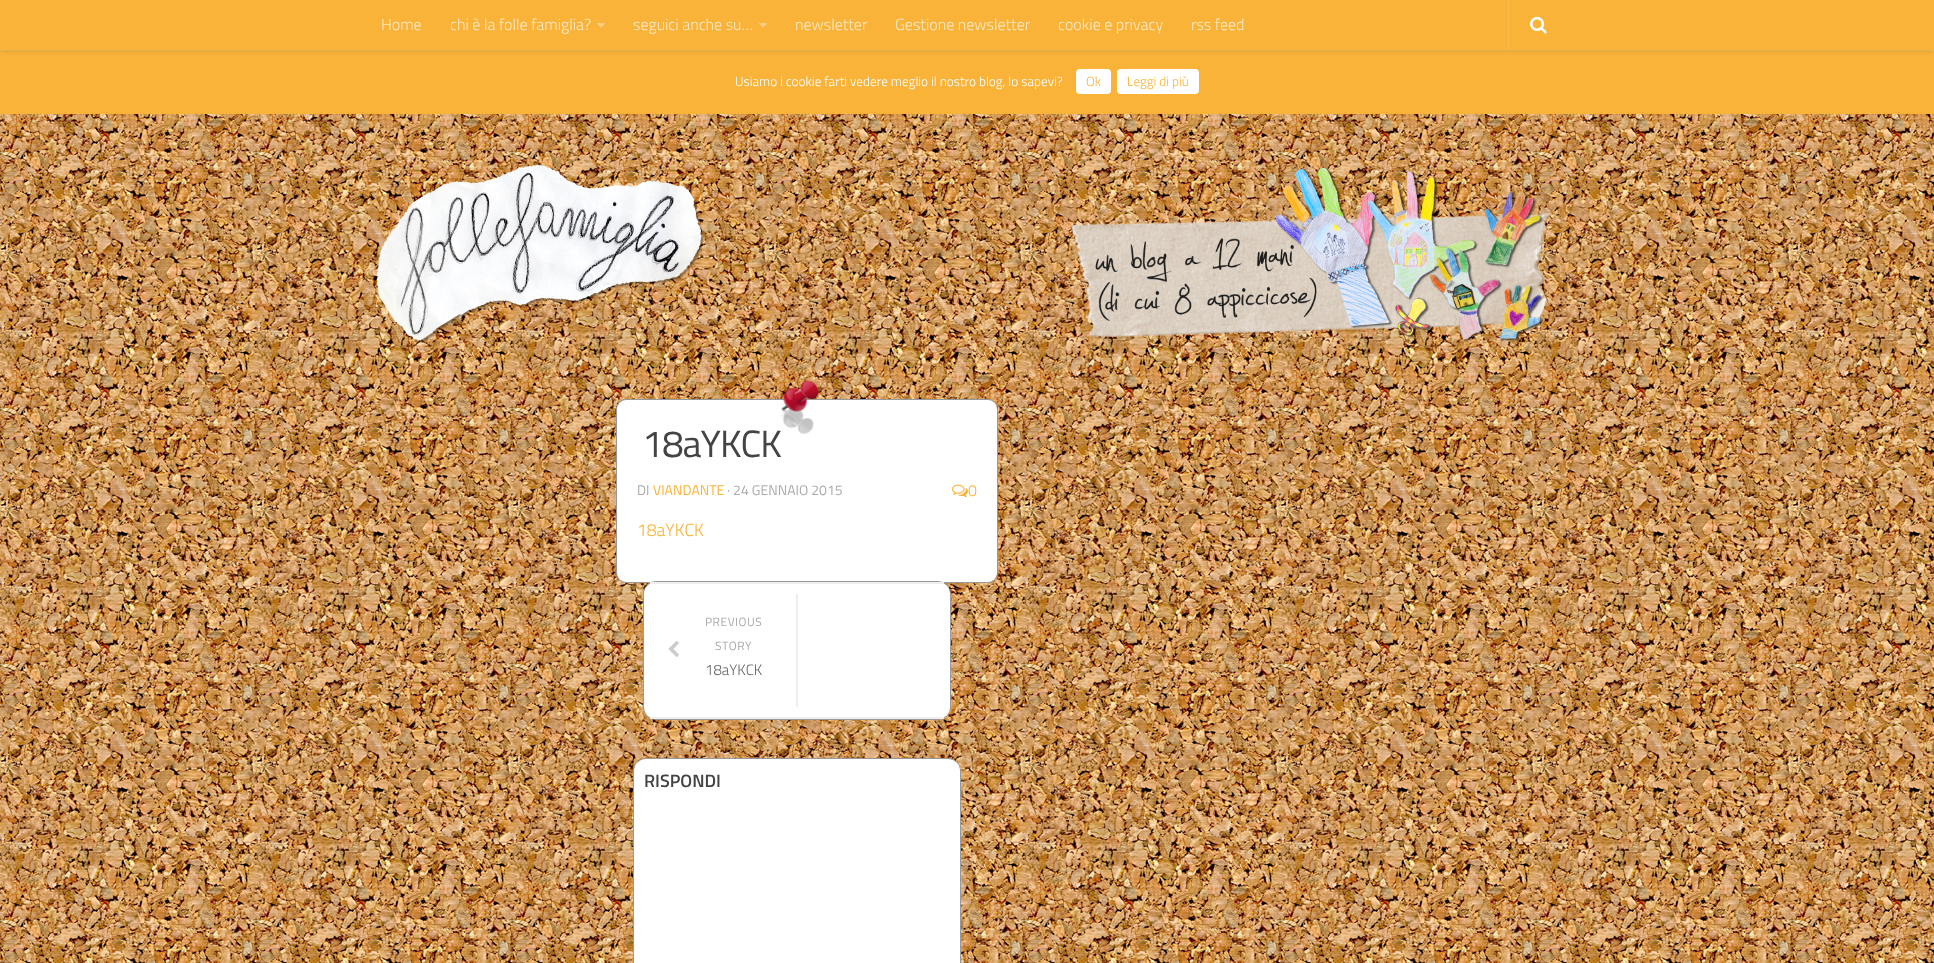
<svg xmlns="http://www.w3.org/2000/svg" width="1934" height="963" viewBox="0 0 1934 963">
  <rect width="100%" height="100%" fill="rgb(255,255,255)"/>
  <image x="0" y="114" width="1934" height="849" href="pic1.png"/>
  <rect x="0" y="50" width="1934" height="1" fill="rgb(250,190,87)"/>
  <rect x="0" y="51" width="1934" height="63" fill="rgb(249,179,57)"/>
  <rect x="0" y="0" width="1934" height="50" fill="rgba(0,0,0,0.2)" filter="blur(2.5px)"/>
  <rect x="0" y="0" width="1934" height="50" fill="rgb(249,179,57)"/>
  <g font-family="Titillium" font-size="16" font-weight="300" fill="rgb(253,232,196)">
    <text x="381" y="30">Home</text>
    <text x="450" y="30">chi è la folle famiglia?</text>
  </g>
  <image x="597" y="23" width="8" height="5" href="pic2.png"/>
  <text x="633" y="30" font-family="Titillium" font-size="16" font-weight="300" fill="rgb(253,232,196)">seguici anche su…</text>
  <image x="759" y="23" width="8" height="5" href="pic2.png"/>
  <g font-family="Titillium" font-size="16" font-weight="300" fill="rgb(253,232,196)">
    <text x="795" y="30">newsletter</text>
    <text x="895" y="30">Gestione newsletter</text>
    <text x="1058" y="30">cookie e privacy</text>
    <text x="1191" y="30">rss feed</text>
  </g>
  <rect x="1508" y="0" width="1" height="50" fill="rgb(250,187,77)"/>
  <image x="1530" y="16" width="17" height="18" href="pic3.png"/>
  <text x="735" y="86" font-family="Titillium" font-size="13.3" font-weight="300" fill="rgb(255,255,255)">Usiamo i cookie farti vedere meglio il nostro blog, lo sapevi?</text>
  <rect x="1076" y="69" width="35" height="25" rx="4" fill="rgb(255,255,255)"/>
  <text x="1086" y="86" font-family="Titillium" font-size="13.3" font-weight="300" fill="rgb(249,179,57)">Ok</text>
  <rect x="1117" y="69" width="82" height="25" rx="4" fill="rgb(255,255,255)"/>
  <text x="1127" y="86" font-family="Titillium" font-size="13.3" font-weight="300" fill="rgb(249,179,57)">Leggi di più</text>
  <image x="377" y="164" width="327" height="180" href="pic4.png"/>
  <image x="1071" y="167" width="478" height="175" href="pic5.png"/>
  <rect x="616.5" y="399.5" width="381" height="183" rx="9.5" fill="none" stroke="rgb(153,153,153)"/>
  <rect x="617" y="400" width="380" height="182" rx="9" fill="rgb(255,255,255)"/>
  <text x="642" y="457" font-family="Titillium" font-size="38" letter-spacing="-1" fill="rgb(68,68,68)">18aYKCK</text>
  <image x="780" y="380" width="39" height="54" href="pic6.png"/>
  <text x="637" y="495" font-family="Titillium" font-size="14" fill="rgb(170,170,170)">DI</text>
  <text x="653" y="495" font-family="Titillium" font-size="14" fill="rgb(249,179,57)">VIANDANTE</text>
  <text x="727" y="495" font-family="Titillium" font-size="14" fill="rgb(170,170,170)">· 24 GENNAIO 2015</text>
  <image x="952" y="484" width="16" height="14" href="pic7.png"/>
  <text x="968" y="496" font-family="Titillium" font-size="16" font-weight="300" fill="rgb(249,179,57)">0</text>
  <text x="637" y="536" font-family="Titillium" font-size="17.5" font-weight="300" fill="rgb(249,179,57)">18aYKCK</text>
  <rect x="643.5" y="581.5" width="307" height="138" rx="12.5" fill="none" stroke="rgb(153,153,153)"/>
  <rect x="644" y="582" width="306" height="137" rx="12" fill="rgb(255,255,255)"/>
  <rect x="650" y="582" width="294" height="2" fill="rgb(238,238,238)"/>
  <rect x="650" y="717" width="294" height="2" fill="rgb(238,238,238)"/>
  <rect x="796" y="594" width="2" height="113" fill="rgb(238,238,238)"/>
  <image x="668" y="641" width="11" height="16" href="pic8.png"/>
  <g font-family="Titillium" font-size="12" letter-spacing="0.5" fill="rgb(170,170,170)">
    <text x="705" y="626">PREVIOUS</text>
    <text x="715" y="650">STORY</text>
  </g>
  <text x="705" y="675" font-family="Titillium" font-size="15" font-weight="300" fill="rgb(102,102,102)">18aYKCK</text>
  <rect x="633.5" y="758.5" width="327" height="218" rx="12.5" fill="none" stroke="rgb(153,153,153)"/>
  <rect x="634" y="759" width="326" height="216" rx="12" fill="rgb(255,255,255)"/>
  <text x="644" y="787" font-family="Titillium" font-size="18" font-weight="600" fill="rgb(68,68,68)">RISPONDI</text>
</svg>
